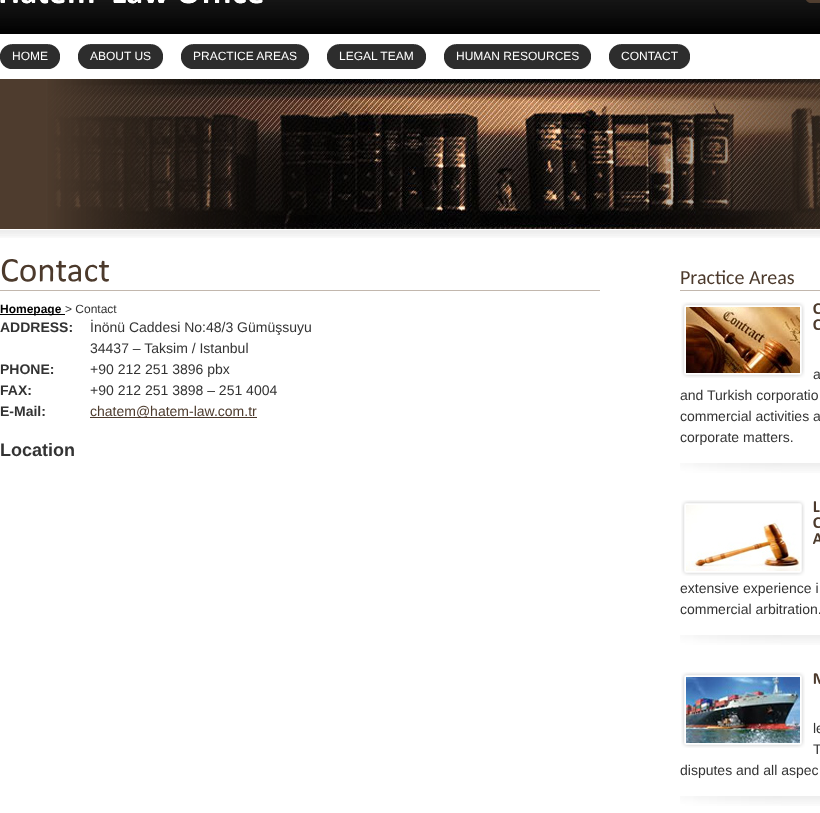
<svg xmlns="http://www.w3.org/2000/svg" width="820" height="813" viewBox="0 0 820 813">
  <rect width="100%" height="100%" fill="rgb(255,255,255)"/>
  <image x="0" y="0" width="820" height="79" href="pic1.png"/>
  <image x="0" y="0" width="263" height="4" href="pic2.png"/>
  <image x="806" y="0" width="14" height="3" href="pic3.png"/>
  <image x="0" y="44" width="48" height="25" href="pic4.png"/>
  <image x="12" y="44" width="48" height="25" href="pic5.png"/>
  <text x="12" y="60" font-family="Liberation Sans" font-size="12" fill="rgb(255,255,255)">HOME</text>
  <image x="78" y="44" width="73" height="25" href="pic6.png"/>
  <image x="90" y="44" width="73" height="25" href="pic7.png"/>
  <text x="90" y="60" font-family="Liberation Sans" font-size="12" fill="rgb(255,255,255)">ABOUT US</text>
  <image x="181" y="44" width="116" height="25" href="pic8.png"/>
  <image x="193" y="44" width="116" height="25" href="pic9.png"/>
  <text x="193" y="60" font-family="Liberation Sans" font-size="12" fill="rgb(255,255,255)">PRACTICE AREAS</text>
  <image x="327" y="44" width="87" height="25" href="pic10.png"/>
  <image x="339" y="44" width="87" height="25" href="pic11.png"/>
  <text x="339" y="60" font-family="Liberation Sans" font-size="12" fill="rgb(255,255,255)">LEGAL TEAM</text>
  <image x="444" y="44" width="135" height="25" href="pic12.png"/>
  <image x="456" y="44" width="135" height="25" href="pic13.png"/>
  <text x="456" y="60" font-family="Liberation Sans" font-size="12" fill="rgb(255,255,255)">HUMAN RESOURCES</text>
  <image x="609" y="44" width="69" height="25" href="pic14.png"/>
  <image x="621" y="44" width="69" height="25" href="pic15.png"/>
  <text x="621" y="60" font-family="Liberation Sans" font-size="12" fill="rgb(255,255,255)">CONTACT</text>
  <image x="47" y="79" width="773" height="150" href="pic17.png"/>
  <image x="0" y="79" width="368" height="150" href="pic16.png"/>
  <image x="578" y="79" width="242" height="150" href="pic18.png"/>
  <image x="0" y="230" width="820" height="8" href="pic19.png"/>
  <rect x="0" y="290" width="600" height="1" fill="rgb(194,183,173)"/>
  <image x="1" y="259" width="108" height="23" href="pic20.png"/>
  <rect x="0" y="314" width="65" height="1" fill="rgb(0,0,0)"/>
  <text x="0" y="313" font-family="Liberation Sans" font-size="12" font-weight="bold" fill="rgb(0,0,0)">Homepage</text>
  <text x="65" y="313" font-family="Liberation Sans" font-size="12" fill="rgb(51,51,51)">&gt; Contact</text>
  <text x="0" y="332" font-family="Liberation Sans" font-size="14" font-weight="bold" fill="rgb(51,51,51)">ADDRESS:</text>
  <g font-family="Liberation Sans" font-size="14" fill="rgb(51,51,51)">
    <text>
      <tspan x="90" y="332">İnönü Caddesi No:48/3 Gümüşsuyu</tspan>
      <tspan x="90" y="353">34437 – Taksim / Istanbul</tspan>
    </text>
  </g>
  <text x="0" y="374" font-family="Liberation Sans" font-size="14" font-weight="bold" fill="rgb(51,51,51)">PHONE:</text>
  <text x="90" y="374" font-family="Liberation Sans" font-size="14" fill="rgb(51,51,51)">+90 212 251 3896 pbx</text>
  <text x="0" y="395" font-family="Liberation Sans" font-size="14" font-weight="bold" fill="rgb(51,51,51)">FAX:</text>
  <text x="90" y="395" font-family="Liberation Sans" font-size="14" fill="rgb(51,51,51)">+90 212 251 3898 – 251 4004</text>
  <text x="0" y="416" font-family="Liberation Sans" font-size="14" font-weight="bold" fill="rgb(51,51,51)">E-Mail:</text>
  <rect x="90" y="417" width="167" height="1" fill="rgb(76,58,44)"/>
  <text x="90" y="416" font-family="Liberation Sans" font-size="14" fill="rgb(76,58,44)">chatem@hatem-law.com.tr</text>
  <text x="0" y="456" font-family="Liberation Sans" font-size="18" font-weight="bold" fill="rgb(51,51,51)">Location</text>
  <rect x="680" y="290" width="140" height="1" fill="rgb(194,183,173)"/>
  <text x="680" y="284" font-family="Carlito" font-size="20" fill="rgb(76,58,44)">Practice Areas</text>
  <image x="680" y="463" width="140" height="10" href="pic21.png"/>
  <image x="681" y="302" width="124" height="76" href="pic22.png"/>
  <image x="686" y="307" width="114" height="66" href="pic23.png"/>
  <image x="813" y="303" width="7" height="11" href="pic24.png"/>
  <image x="813" y="319" width="7" height="11" href="pic24.png"/>
  <g font-family="Liberation Sans" font-size="14" fill="rgb(51,51,51)">
    <text x="813" y="379">a</text>
    <text>
      <tspan x="680" y="400">and Turkish corporatio</tspan>
      <tspan x="680" y="421">commercial activities a</tspan>
      <tspan x="680" y="442">corporate matters.</tspan>
    </text>
  </g>
  <image x="680" y="635" width="140" height="10" href="pic21.png"/>
  <image x="681" y="500" width="124" height="76" href="pic22.png"/>
  <image x="686" y="505" width="114" height="66" href="pic25.png"/>
  <image x="813" y="501" width="7" height="11" href="pic26.png"/>
  <image x="813" y="517" width="7" height="11" href="pic24.png"/>
  <image x="813" y="533" width="7" height="11" href="pic27.png"/>
  <g font-family="Liberation Sans" font-size="14" fill="rgb(51,51,51)">
    <text>
      <tspan x="680" y="593">extensive experience i</tspan>
      <tspan x="680" y="614">commercial arbitration.</tspan>
    </text>
  </g>
  <image x="680" y="796" width="140" height="10" href="pic21.png"/>
  <image x="681" y="672" width="124" height="76" href="pic22.png"/>
  <image x="686" y="677" width="114" height="66" href="pic28.png"/>
  <image x="813" y="673" width="7" height="11" href="pic29.png"/>
  <g font-family="Liberation Sans" font-size="14" fill="rgb(51,51,51)">
    <text>
      <tspan x="813" y="733">le</tspan>
      <tspan x="813" y="754">T</tspan>
    </text>
    <text x="680" y="775">disputes and all aspec</text>
  </g>
</svg>
